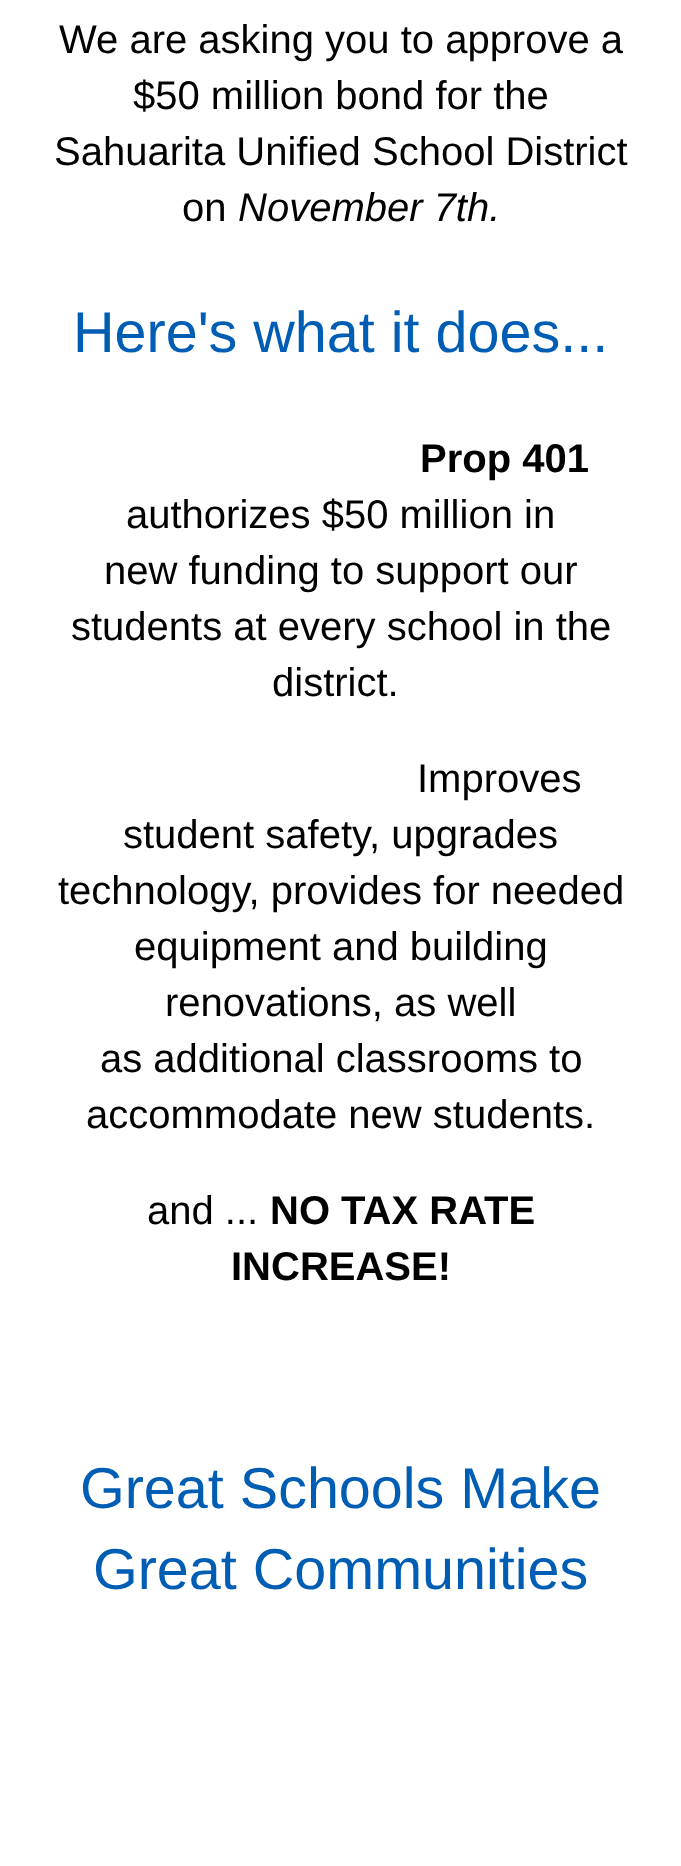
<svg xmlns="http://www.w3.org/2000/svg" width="681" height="1866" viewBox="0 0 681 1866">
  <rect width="100%" height="100%" fill="rgb(255,255,255)"/>
  <g font-family="Liberation Sans" font-size="40" fill="rgb(0,0,0)">
    <text x="59" y="53">We are asking you to approve a</text>
    <text x="133" y="109">$50 million bond for the</text>
    <text x="54" y="165">Sahuarita Unified School District</text>
    <text x="182" y="221">on</text>
  </g>
  <text x="238" y="221" font-family="Liberation Sans" font-size="40" font-style="italic" fill="rgb(0,0,0)">November 7th.</text>
  <text x="73" y="352" font-family="Liberation Sans" font-size="57.5" fill="rgb(0,93,180)">Here's what it does...</text>
  <text x="420" y="472" font-family="Liberation Sans" font-size="40" font-weight="bold" fill="rgb(0,0,0)">Prop 401</text>
  <g font-family="Liberation Sans" font-size="40" fill="rgb(0,0,0)">
    <text x="126" y="528">authorizes $50 million in</text>
    <text x="104" y="584">new funding to support our</text>
    <text x="71" y="640">students at every school in the</text>
    <text x="272" y="696">district.</text>
    <text x="417" y="792">Improves</text>
    <text x="123" y="848">student safety, upgrades</text>
    <text x="58" y="904">technology, provides for needed</text>
    <text x="134" y="960">equipment and building</text>
    <text x="165" y="1016">renovations, as well</text>
    <text x="100" y="1072">as additional classrooms to</text>
    <text x="86" y="1128">accommodate new students.</text>
    <text x="147" y="1224">and ...</text>
  </g>
  <g font-family="Liberation Sans" font-size="40" font-weight="bold" fill="rgb(0,0,0)">
    <text x="270" y="1224">NO TAX RATE</text>
    <text x="231" y="1280">INCREASE!</text>
  </g>
  <g font-family="Liberation Sans" font-size="57.5" fill="rgb(0,93,180)">
    <text x="80" y="1508">Great Schools Make</text>
    <text x="93" y="1589">Great Communities</text>
  </g>
</svg>
